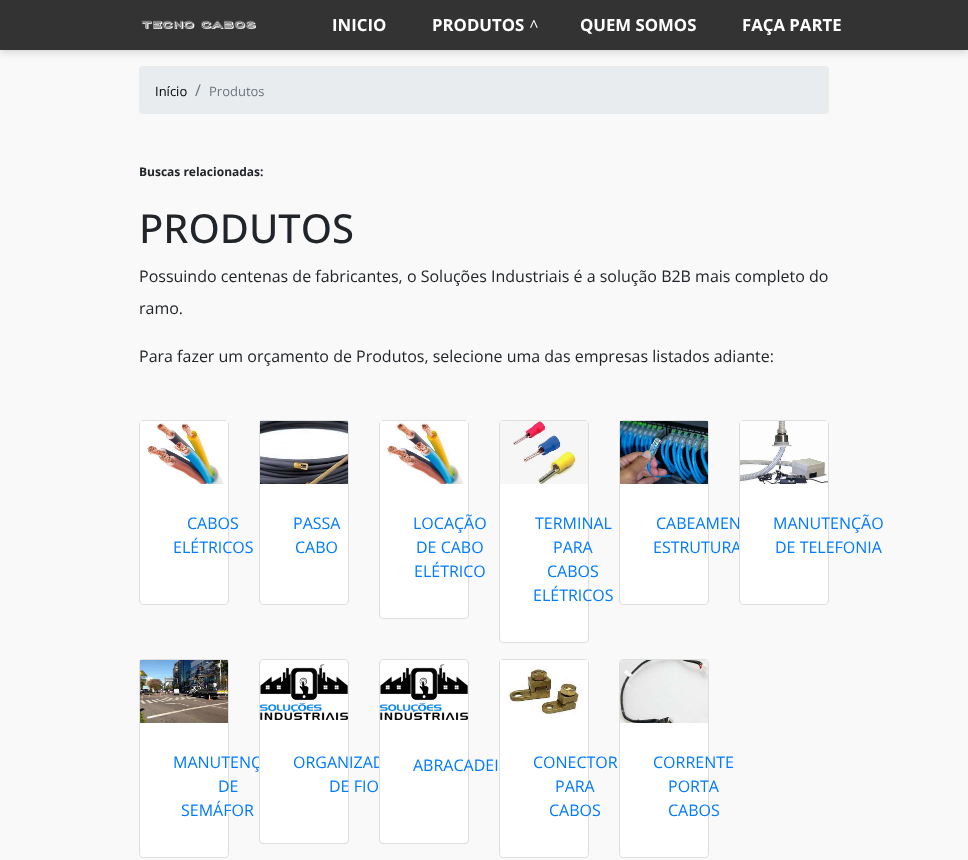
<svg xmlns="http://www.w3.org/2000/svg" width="968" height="860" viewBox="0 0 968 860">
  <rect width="100%" height="100%" fill="rgb(249,249,249)"/>
  <rect x="139" y="66" width="690" height="48" rx="4" fill="rgb(233,236,239)"/>
  <rect x="0" y="1" width="968" height="50" fill="rgba(0,0,0,0.2)" filter="blur(5px)"/>
  <rect x="0" y="0" width="968" height="50" fill="rgb(51,51,51)"/>
  <image x="141" y="20" width="115" height="9" href="pic1.png"/>
  <g font-family="Open Sans" font-size="16.75" font-weight="bold" fill="rgb(255,255,255)">
    <text x="332" y="31">INICIO</text>
    <text x="432" y="31">PRODUTOS</text>
  </g>
  <text x="529" y="31" font-family="Liberation Serif" font-size="16.75" font-weight="bold" fill="rgb(255,255,255)">^</text>
  <g font-family="Open Sans" font-size="16.75" font-weight="bold" fill="rgb(255,255,255)">
    <text x="580" y="31">QUEM SOMOS</text>
    <text x="742" y="31">FAÇA PARTE</text>
  </g>
  <text x="155" y="96" font-family="Open Sans" font-size="13" fill="rgb(0,0,0)">Início</text>
  <text x="195" y="96" font-family="Open Sans" font-size="16" fill="rgb(108,117,125)">/</text>
  <text x="209" y="96" font-family="Open Sans" font-size="13" fill="rgb(108,117,125)">Produtos</text>
  <text x="139" y="176" font-family="Open Sans" font-size="12" font-weight="bold" fill="rgb(33,37,41)">Buscas relacionadas:</text>
  <text x="139" y="243" font-family="Open Sans" font-size="40" font-weight="500" fill="rgb(33,37,41)">PRODUTOS</text>
  <g font-family="Open Sans" font-size="16" fill="rgb(33,37,41)">
    <text x="139" y="282">Possuindo centenas de fabricantes, o Soluções Industriais é a solução B2B mais completo do</text>
    <text x="139" y="314">ramo.</text>
    <text x="139" y="362">Para fazer um orçamento de Produtos, selecione uma das empresas listados adiante:</text>
  </g>
  <rect x="139.5" y="420.5" width="89" height="184" rx="3.5" fill="rgb(255,255,255)" stroke="rgb(223,223,223)"/>
  <image x="140" y="421" width="88" height="63" href="pic2.png"/>
  <g font-family="Open Sans" font-size="16" fill="rgb(0,123,255)">
    <text x="187" y="529">CABOS</text>
    <text x="173" y="553">ELÉTRICOS</text>
  </g>
  <rect x="259.5" y="420.5" width="89" height="184" rx="3.5" fill="rgb(255,255,255)" stroke="rgb(223,223,223)"/>
  <image x="260" y="421" width="88" height="63" href="pic3.png"/>
  <g font-family="Open Sans" font-size="16" fill="rgb(0,123,255)">
    <text x="293" y="529">PASSA</text>
    <text x="295" y="553">CABO</text>
  </g>
  <rect x="379.5" y="420.5" width="89" height="198" rx="3.5" fill="rgb(255,255,255)" stroke="rgb(223,223,223)"/>
  <image x="380" y="421" width="88" height="63" href="pic4.png"/>
  <g font-family="Open Sans" font-size="16" fill="rgb(0,123,255)">
    <text x="413" y="529">LOCAÇÃO</text>
    <text x="416" y="553">DE CABO</text>
    <text x="414" y="577">ELÉTRICO</text>
  </g>
  <rect x="499.5" y="420.5" width="89" height="222" rx="3.5" fill="rgb(255,255,255)" stroke="rgb(223,223,223)"/>
  <image x="500" y="421" width="88" height="63" href="pic5.png"/>
  <g font-family="Open Sans" font-size="16" fill="rgb(0,123,255)">
    <text x="535" y="529">TERMINAL</text>
    <text x="553" y="553">PARA</text>
    <text x="547" y="577">CABOS</text>
    <text x="533" y="601">ELÉTRICOS</text>
  </g>
  <rect x="619.5" y="420.5" width="89" height="184" rx="3.5" fill="rgb(255,255,255)" stroke="rgb(223,223,223)"/>
  <image x="620" y="421" width="88" height="63" href="pic6.png"/>
  <g font-family="Open Sans" font-size="16" fill="rgb(0,123,255)">
    <text x="656" y="529">CABEAMEN</text>
    <text x="653" y="553">ESTRUTURA</text>
  </g>
  <rect x="739.5" y="420.5" width="89" height="184" rx="3.5" fill="rgb(255,255,255)" stroke="rgb(223,223,223)"/>
  <image x="740" y="421" width="88" height="63" href="pic7.png"/>
  <g font-family="Open Sans" font-size="16" fill="rgb(0,123,255)">
    <text x="773" y="529">MANUTENÇÃO</text>
    <text x="775" y="553">DE TELEFONIA</text>
  </g>
  <rect x="139.5" y="659.5" width="89" height="198" rx="3.5" fill="rgb(255,255,255)" stroke="rgb(223,223,223)"/>
  <image x="140" y="660" width="88" height="63" href="pic8.png"/>
  <g font-family="Open Sans" font-size="16" fill="rgb(0,123,255)">
    <text x="173" y="768">MANUTENÇ</text>
    <text x="218" y="792">DE</text>
    <text x="181" y="816">SEMÁFOR</text>
  </g>
  <rect x="259.5" y="659.5" width="89" height="184" rx="3.5" fill="rgb(255,255,255)" stroke="rgb(223,223,223)"/>
  <image x="260" y="663" width="88" height="57" href="pic9.png"/>
  <g font-family="Open Sans" font-size="16" fill="rgb(0,123,255)">
    <text x="293" y="768">ORGANIZAD</text>
    <text x="329" y="792">DE FIO</text>
  </g>
  <rect x="379.5" y="659.5" width="89" height="184" rx="3.5" fill="rgb(255,255,255)" stroke="rgb(223,223,223)"/>
  <image x="380" y="663" width="88" height="57" href="pic9.png"/>
  <text x="413" y="771" font-family="Open Sans" font-size="16" fill="rgb(0,123,255)">ABRACADEI</text>
  <rect x="499.5" y="659.5" width="89" height="198" rx="3.5" fill="rgb(255,255,255)" stroke="rgb(223,223,223)"/>
  <image x="500" y="660" width="88" height="55" href="pic10.png"/>
  <g font-family="Open Sans" font-size="16" fill="rgb(0,123,255)">
    <text x="533" y="768">CONECTOR</text>
    <text x="555" y="792">PARA</text>
    <text x="549" y="816">CABOS</text>
  </g>
  <rect x="619.5" y="659.5" width="89" height="198" rx="3.5" fill="rgb(255,255,255)" stroke="rgb(223,223,223)"/>
  <image x="620" y="660" width="88" height="63" href="pic11.png"/>
  <g font-family="Open Sans" font-size="16" fill="rgb(0,123,255)">
    <text x="653" y="768">CORRENTE</text>
    <text>
      <tspan x="668" y="792">PORTA</tspan>
      <tspan x="668" y="816">CABOS</tspan>
    </text>
  </g>
</svg>
